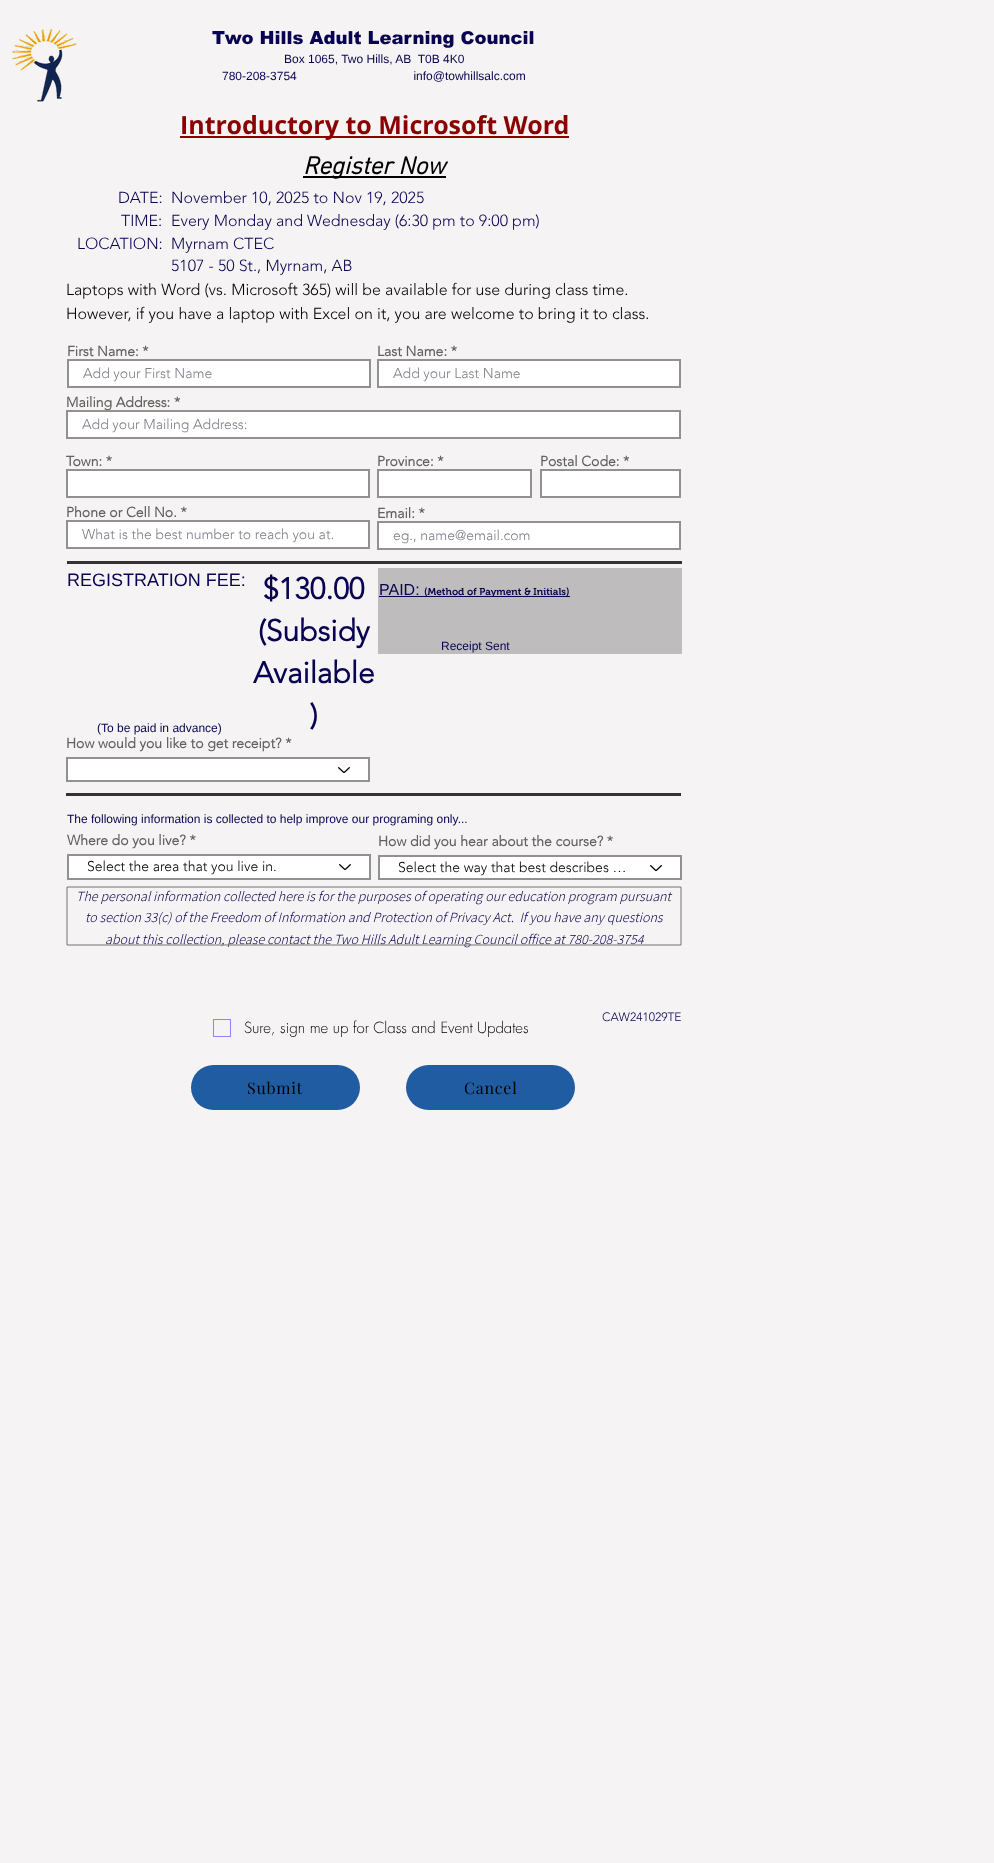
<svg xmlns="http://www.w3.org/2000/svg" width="994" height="1863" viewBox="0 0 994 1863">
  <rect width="100%" height="100%" fill="rgb(245,243,243)"/>
  <image x="12" y="29" width="65" height="73" href="pic1.png"/>
  <text x="212" y="44" font-family="arial" font-size="18" font-weight="900" fill="rgb(8,4,81)">Two Hills Adult Learning Council</text>
  <g font-family="Liberation Sans" font-size="12" fill="rgb(8,4,81)">
    <text x="284" y="63" xml:space="preserve">Box 1065, Two Hills, AB  T0B 4K0</text>
    <text x="222" y="80" xml:space="preserve">780-208-3754                                   info@towhillsalc.com</text>
  </g>
  <rect x="180" y="136" width="389" height="2" fill="rgb(139,0,0)"/>
  <text x="180" y="134" font-family="Open Sans" font-size="25" font-weight="bold" fill="rgb(139,0,0)">Introductory to Microsoft Word</text>
  <rect x="303" y="176" width="143" height="2" fill="rgb(0,0,0)"/>
  <text x="303" y="174" font-family="'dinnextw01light'" font-size="25" font-weight="bold" font-style="italic" fill="rgb(0,0,0)">Register Now</text>
  <g font-family="'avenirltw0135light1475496'" font-size="16" font-weight="300" fill="rgb(8,4,81)">
    <text x="118" y="203">DATE:</text>
    <text x="171" y="203">November 10, 2025 to Nov 19, 2025</text>
    <text x="121" y="226">TIME:</text>
    <text x="171" y="226">Every Monday and Wednesday (6:30 pm to 9:00 pm)</text>
    <text x="77" y="249">LOCATION:</text>
    <text>
      <tspan x="171" y="249">Myrnam CTEC</tspan>
      <tspan x="171" y="271">5107 - 50 St., Myrnam, AB</tspan>
    </text>
  </g>
  <g font-family="'avenirltw0135light1475496'" font-size="16" font-weight="300" fill="rgb(0,0,0)">
    <text>
      <tspan x="66" y="295">Laptops with Word (vs. Microsoft 365) will be available for use during class time.</tspan>
      <tspan x="66" y="319">However, if you have a laptop with Excel on it, you are welcome to bring it to class.</tspan>
    </text>
  </g>
  <text x="67" y="356" font-family="'avenirltw0135light1475496'" font-size="14" font-weight="bold" fill="rgb(97,97,95)">First Name: *</text>
  <rect x="68" y="360" width="302" height="27" fill="rgb(255,255,255)" stroke="rgb(145,145,145)" stroke-width="2"/>
  <text x="83" y="378" font-family="'avenirltw0135light1475496'" font-size="14" font-weight="300" fill="rgb(127,128,138)">Add your First Name</text>
  <text x="377" y="356" font-family="'avenirltw0135light1475496'" font-size="14" font-weight="bold" fill="rgb(97,97,95)">Last Name: *</text>
  <rect x="378" y="360" width="302" height="27" fill="rgb(255,255,255)" stroke="rgb(145,145,145)" stroke-width="2"/>
  <text x="393" y="378" font-family="'avenirltw0135light1475496'" font-size="14" font-weight="300" fill="rgb(127,128,138)">Add your Last Name</text>
  <text x="66" y="407" font-family="'avenirltw0135light1475496'" font-size="14" font-weight="bold" fill="rgb(97,97,95)">Mailing Address: *</text>
  <rect x="67" y="411" width="613" height="27" fill="rgb(255,255,255)" stroke="rgb(145,145,145)" stroke-width="2"/>
  <text x="82" y="429" font-family="'avenirltw0135light1475496'" font-size="14" font-weight="300" fill="rgb(127,128,138)">Add your Mailing Address:</text>
  <text x="66" y="466" font-family="'avenirltw0135light1475496'" font-size="14" font-weight="bold" fill="rgb(97,97,95)">Town: *</text>
  <rect x="67" y="470" width="302" height="27" fill="rgb(255,255,255)" stroke="rgb(145,145,145)" stroke-width="2"/>
  <text x="377" y="466" font-family="'avenirltw0135light1475496'" font-size="14" font-weight="bold" fill="rgb(97,97,95)">Province: *</text>
  <rect x="378" y="470" width="153" height="27" fill="rgb(255,255,255)" stroke="rgb(145,145,145)" stroke-width="2"/>
  <text x="540" y="466" font-family="'avenirltw0135light1475496'" font-size="14" font-weight="bold" fill="rgb(97,97,95)">Postal Code: *</text>
  <rect x="541" y="470" width="139" height="27" fill="rgb(255,255,255)" stroke="rgb(145,145,145)" stroke-width="2"/>
  <text x="66" y="517" font-family="'avenirltw0135light1475496'" font-size="14" font-weight="bold" fill="rgb(97,97,95)">Phone or Cell No. *</text>
  <rect x="67" y="521" width="302" height="27" fill="rgb(255,255,255)" stroke="rgb(145,145,145)" stroke-width="2"/>
  <text x="82" y="539" font-family="'avenirltw0135light1475496'" font-size="14" font-weight="300" fill="rgb(127,128,138)">What is the best number to reach you at.</text>
  <text x="377" y="518" font-family="'avenirltw0135light1475496'" font-size="14" font-weight="bold" fill="rgb(97,97,95)">Email: *</text>
  <rect x="378" y="522" width="302" height="27" fill="rgb(255,255,255)" stroke="rgb(145,145,145)" stroke-width="2"/>
  <text x="393" y="540" font-family="'avenirltw0135light1475496'" font-size="14" font-weight="300" fill="rgb(127,128,138)">eg., name@email.com</text>
  <rect x="67" y="561" width="615" height="3" fill="rgb(51,51,51)"/>
  <text x="67" y="586" font-family="Liberation Sans" font-size="18" fill="rgb(8,4,81)">REGISTRATION FEE:</text>
  <g font-family="'avenirltw0135light1475496'" font-size="30" font-weight="bold" fill="rgb(8,4,81)">
    <text x="263" y="599">$130.00</text>
    <text x="258" y="641">(Subsidy</text>
    <text x="253" y="683">Available</text>
    <text x="310" y="725">)</text>
  </g>
  <rect x="378" y="568" width="304" height="86" fill="rgb(190,188,188)"/>
  <text x="379" y="595" font-family="Liberation Sans" font-size="16" fill="rgb(8,4,81)">PAID:</text>
  <rect x="379" y="596" width="191" height="1" fill="rgb(8,4,81)"/>
  <text x="424" y="595" font-family="'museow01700'" font-size="10" font-weight="600" fill="rgb(8,4,81)">(Method of Payment &amp; Initials)</text>
  <g font-family="Liberation Sans" font-size="12" fill="rgb(8,4,81)">
    <text x="441" y="650">Receipt Sent</text>
    <text x="97" y="732">(To be paid in advance)</text>
  </g>
  <text x="66" y="748" font-family="'avenirltw0135light1475496'" font-size="14" font-weight="bold" fill="rgb(97,97,95)">How would you like to get receipt? *</text>
  <rect x="67" y="758" width="302" height="23" fill="rgb(255,255,255)" stroke="rgb(145,145,145)" stroke-width="2"/>
  <image x="338" y="767" width="12" height="6" href="pic2.png"/>
  <rect x="66" y="793" width="615" height="3" fill="rgb(51,51,51)"/>
  <text x="67" y="823" font-family="Liberation Sans" font-size="12" fill="rgb(8,4,81)">The following information is collected to help improve our programing only...</text>
  <text x="67" y="845" font-family="'avenirltw0135light1475496'" font-size="14" font-weight="bold" fill="rgb(97,97,95)">Where do you live? *</text>
  <rect x="68" y="855" width="302" height="24" fill="rgb(255,255,255)" stroke="rgb(145,145,145)" stroke-width="2"/>
  <text x="87" y="871" font-family="'avenirltw0135light1475496'" font-size="14" font-weight="300" fill="rgb(0,0,0)">Select the area that you live in.</text>
  <image x="339" y="864" width="12" height="6" href="pic2.png"/>
  <text x="378" y="846" font-family="'avenirltw0135light1475496'" font-size="14" font-weight="bold" fill="rgb(97,97,95)">How did you hear about the course? *</text>
  <rect x="379" y="856" width="302" height="23" fill="rgb(255,255,255)" stroke="rgb(145,145,145)" stroke-width="2"/>
  <text x="398" y="872" font-family="'avenirltw0135light1475496'" font-size="14" font-weight="300" fill="rgb(0,0,0)">Select the way that best describes …</text>
  <image x="650" y="865" width="12" height="6" href="pic2.png"/>
  <g font-family="Assistant" font-size="14" font-weight="300" font-style="italic" fill="rgb(8,4,81)">
    <text x="76" y="901">The personal information collected here is for the purposes of operating our education program pursuant</text>
    <text x="85" y="922" xml:space="preserve">to section 33(c) of the Freedom of Information and Protection of Privacy Act.  If you have any questions</text>
    <text x="105" y="944">about this collection, please contact the Two Hills Adult Learning Council office at 780-208-3754</text>
  </g>
  <path d="M681 887V945H67V887Z" fill="none" stroke="rgb(117,117,117)"/>
  <text x="602" y="1021" font-family="'avenirltw0135light1475496'" font-size="12" font-weight="300" fill="rgb(8,4,81)">CAW241029TE</text>
  <rect x="213.5" y="1019.5" width="17" height="17" fill="none" stroke="rgb(140,132,250)"/>
  <text x="244" y="1033" font-family="futura" font-size="15" font-weight="300" fill="rgb(0,0,0)">Sure, sign me up for Class and Event Updates</text>
  <rect x="191" y="1065" width="169" height="45" rx="22.5" fill="rgb(32,92,161)"/>
  <text x="247" y="1094" font-family="Playfair Display" font-size="16" letter-spacing="0.75" fill="rgb(0,0,0)">Submit</text>
  <rect x="406" y="1065" width="169" height="45" rx="22.5" fill="rgb(32,92,161)"/>
  <text x="464" y="1094" font-family="Playfair Display" font-size="16" letter-spacing="0.75" fill="rgb(0,0,0)">Cancel</text>
</svg>
